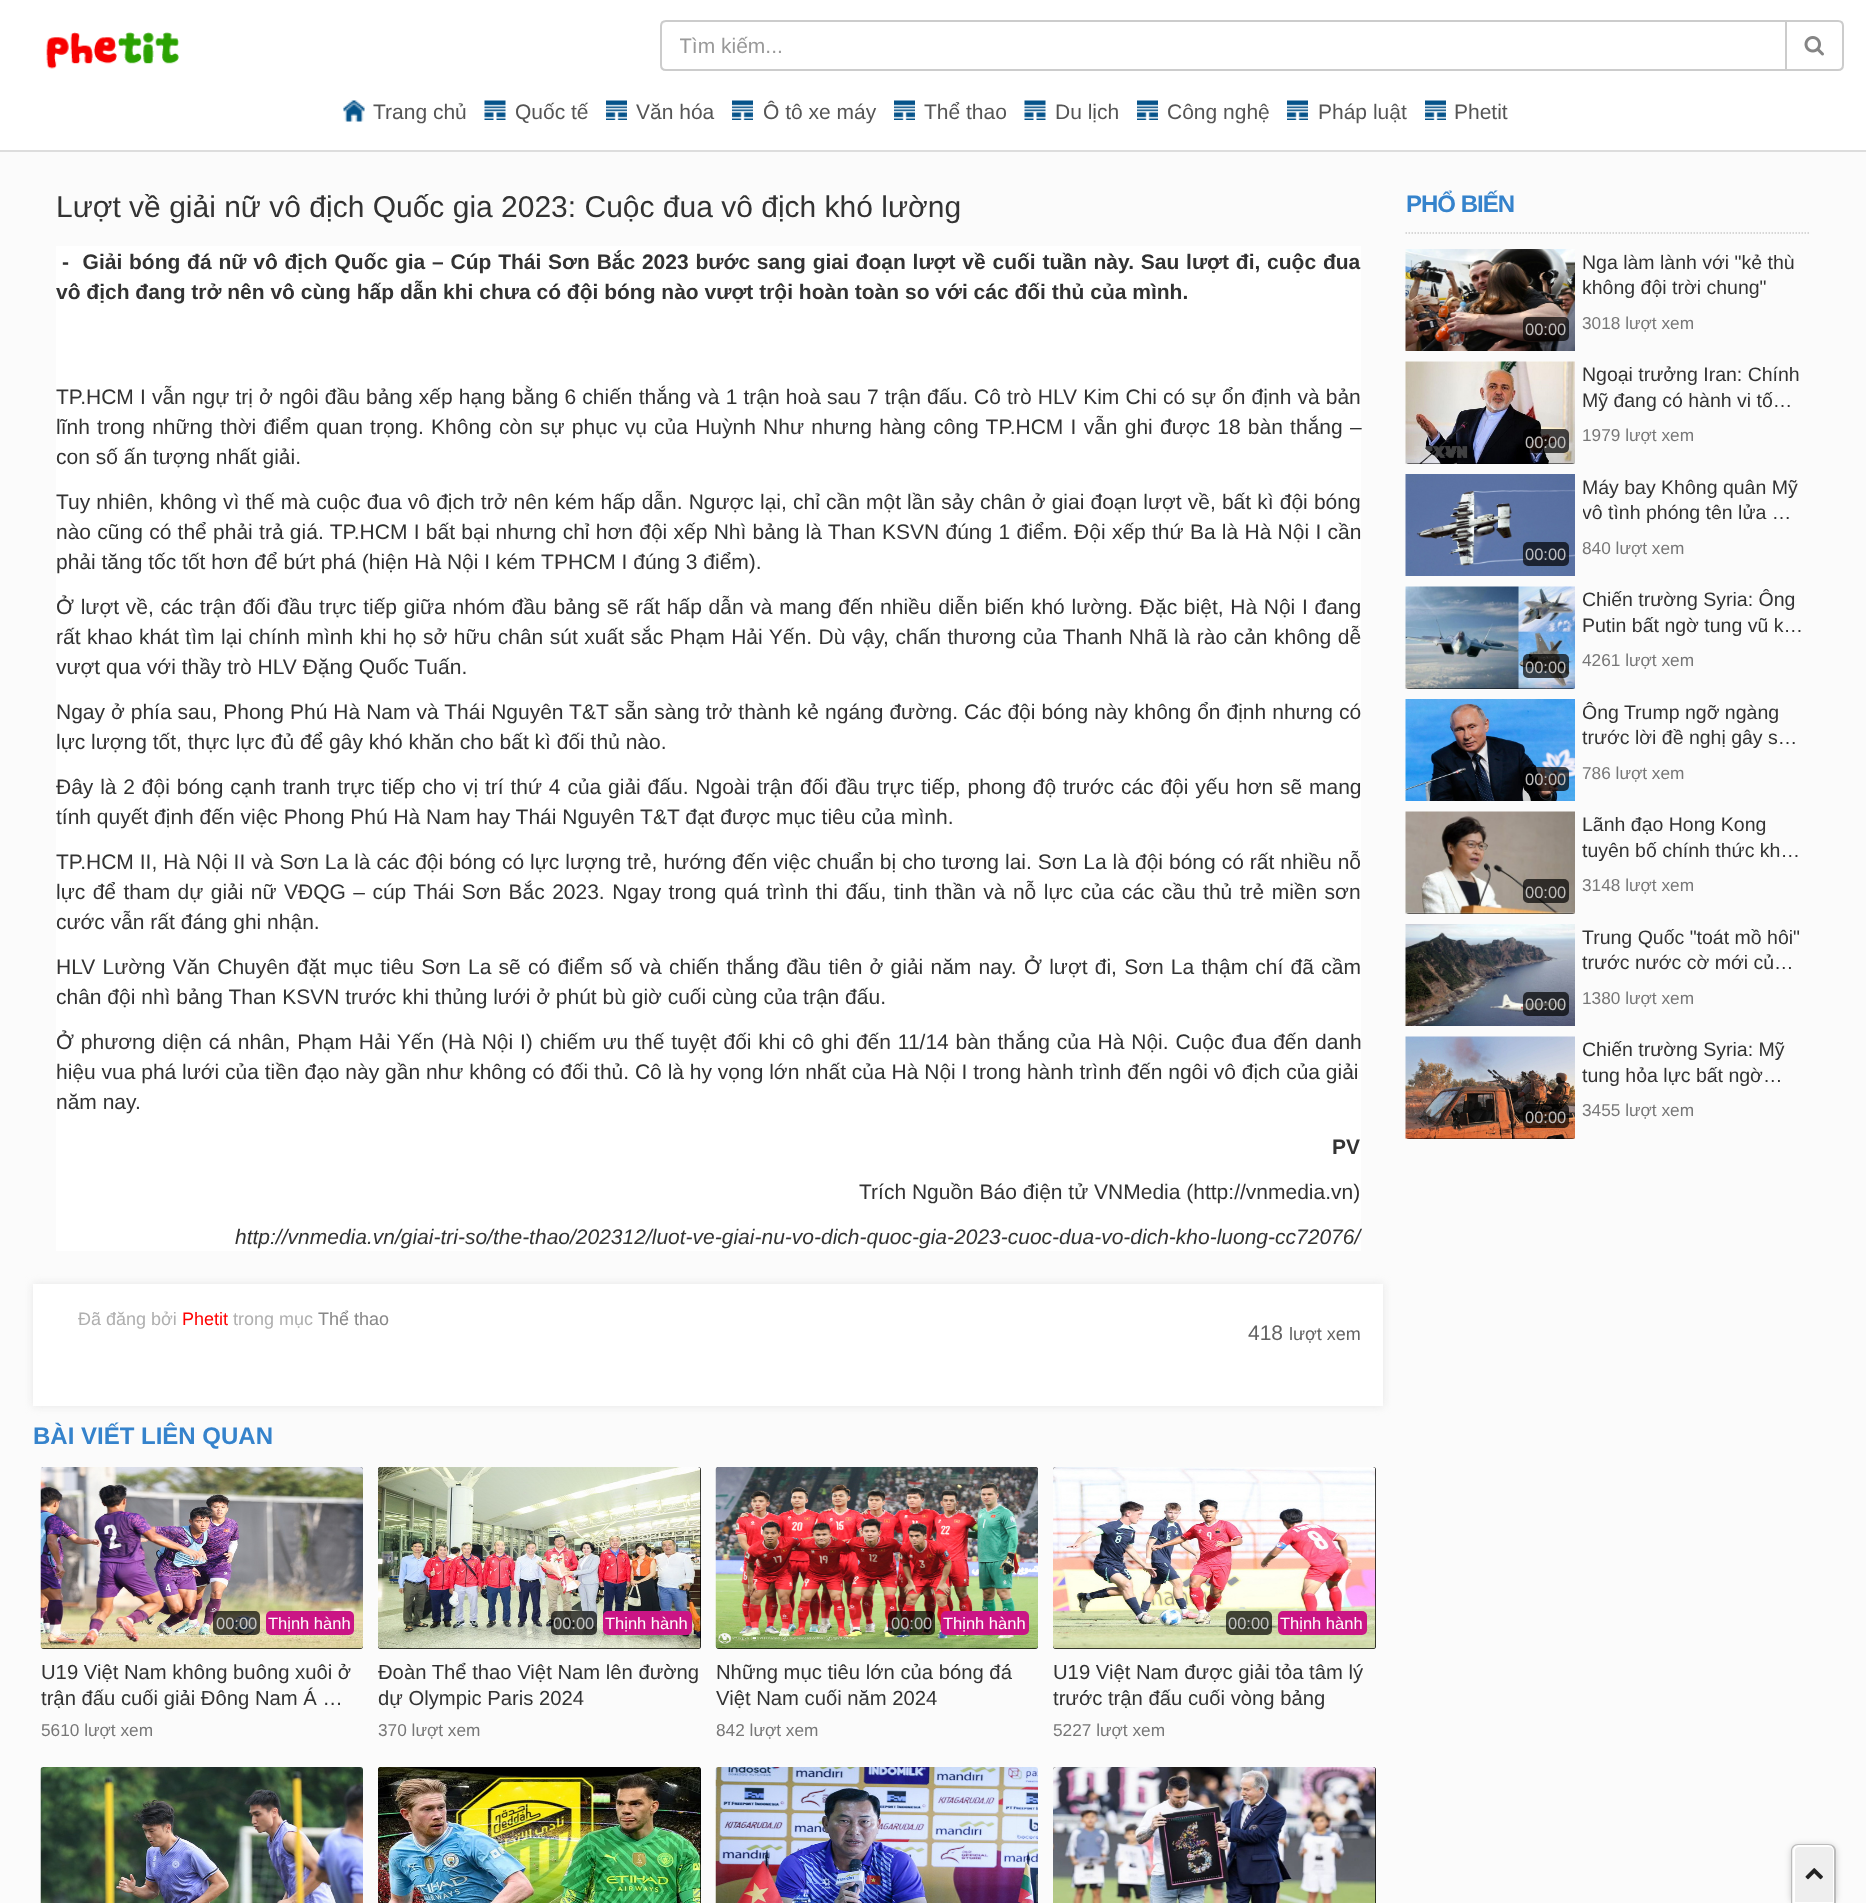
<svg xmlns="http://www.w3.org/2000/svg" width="1866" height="1903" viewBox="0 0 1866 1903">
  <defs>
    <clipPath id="clip1"><rect x="680" y="33" width="1087" height="24"/></clipPath>
    <clipPath id="clip2"><rect x="1583" y="474" width="220" height="51"/></clipPath>
    <clipPath id="clip3"><rect x="1583" y="587" width="220" height="51"/></clipPath>
    <clipPath id="clip4"><rect x="1583" y="699" width="220" height="51"/></clipPath>
    <clipPath id="clip5"><rect x="1583" y="1037" width="220" height="51"/></clipPath>
  </defs>
  <rect width="100%" height="100%" fill="rgb(251,251,251)"/>
  <rect x="0" y="0" width="1866" height="150" fill="rgb(255,255,255)"/>
  <rect x="0" y="150" width="1866" height="2" fill="rgb(221,221,221)"/>
  <image x="46" y="32" width="133" height="37" href="pic1.png"/>
  <path d="M666 22H1785V21H667C664 21 662 24 662 27C662 25 664 22 666 22Z" fill="rgb(236,236,236)"/>
  <path d="M666 21H1786V70H666C663 70 661 68 661 65V26C661 23 663 21 666 21Z" fill="none" stroke="rgb(204,204,204)" stroke-width="2"/>
  <g clip-path="url(#clip1)">
    <text x="679" y="53" font-family="Liberation Sans" font-size="21" fill="rgb(153,153,153)">Tìm kiếm...</text>
  </g>
  <path d="M1786 21H1838C1841 21 1843 23 1843 26V65C1843 68 1841 70 1838 70H1786Z" fill="rgb(255,255,255)" stroke="rgb(204,204,204)" stroke-width="2"/>
  <image x="1804" y="36" width="20" height="20" href="pic2.png"/>
  <image x="343" y="100" width="22" height="22" href="pic3.png"/>
  <text x="373" y="119" font-family="Liberation Sans" font-size="21" fill="rgb(85,85,85)">Trang chủ</text>
  <image x="484" y="100" width="22" height="20" href="pic4.png"/>
  <text x="515" y="119" font-family="Liberation Sans" font-size="21" fill="rgb(85,85,85)">Quốc tế</text>
  <image x="606" y="100" width="21" height="20" href="pic5.png"/>
  <text x="636" y="119" font-family="Liberation Sans" font-size="21" fill="rgb(85,85,85)">Văn hóa</text>
  <image x="732" y="100" width="21" height="20" href="pic6.png"/>
  <text x="763" y="119" font-family="Liberation Sans" font-size="21" fill="rgb(85,85,85)">Ô tô xe máy</text>
  <image x="894" y="100" width="21" height="20" href="pic5.png"/>
  <text x="924" y="119" font-family="Liberation Sans" font-size="21" fill="rgb(85,85,85)">Thể thao</text>
  <image x="1024" y="100" width="22" height="20" href="pic4.png"/>
  <text x="1055" y="119" font-family="Liberation Sans" font-size="21" fill="rgb(85,85,85)">Du lịch</text>
  <image x="1137" y="100" width="21" height="20" href="pic6.png"/>
  <text x="1167" y="119" font-family="Liberation Sans" font-size="21" fill="rgb(85,85,85)">Công nghệ</text>
  <image x="1287" y="100" width="21" height="20" href="pic7.png"/>
  <text x="1318" y="119" font-family="Liberation Sans" font-size="21" fill="rgb(85,85,85)">Pháp luật</text>
  <image x="1425" y="100" width="21" height="20" href="pic5.png"/>
  <text x="1454" y="119" font-family="Liberation Sans" font-size="21" fill="rgb(85,85,85)">Phetit</text>
  <text x="56" y="217" font-family="Liberation Sans" font-size="30" fill="rgb(51,51,51)">Lượt về giải nữ vô địch Quốc gia 2023: Cuộc đua vô địch khó lường</text>
  <rect x="56" y="246" width="1305" height="1005" fill="rgb(255,255,255)"/>
  <g font-family="Liberation Sans" font-size="21" font-weight="bold" fill="rgb(51,51,51)">
    <text x="62" y="269" word-spacing="0.95" xml:space="preserve">-  Giải bóng đá nữ vô địch Quốc gia – Cúp Thái Sơn Bắc 2023 bước sang giai đoạn lượt về cuối tuần này. Sau lượt đi, cuộc đua</text>
    <text x="56" y="299">vô địch đang trở nên vô cùng hấp dẫn khi chưa có đội bóng nào vượt trội hoàn toàn so với các đối thủ của mình.</text>
  </g>
  <g font-family="Liberation Sans" font-size="21" fill="rgb(51,51,51)">
    <text>
      <tspan x="56" y="404" word-spacing="0.3">TP.HCM I vẫn ngự trị ở ngôi đầu bảng xếp hạng bằng 6 chiến thắng và 1 trận hoà sau 7 trận đấu. Cô trò HLV Kim Chi có sự ổn định và bản</tspan>
      <tspan x="56" y="434" word-spacing="1.4">lĩnh trong những thời điểm quan trọng. Không còn sự phục vụ của Huỳnh Như nhưng hàng công TP.HCM I vẫn ghi được 18 bàn thắng –</tspan>
      <tspan x="56" y="464">con số ấn tượng nhất giải.</tspan>
    </text>
    <text>
      <tspan x="56" y="509" word-spacing="0.3">Tuy nhiên, không vì thế mà cuộc đua vô địch trở nên kém hấp dẫn. Ngược lại, chỉ cần một lần sảy chân ở giai đoạn lượt về, bất kì đội bóng</tspan>
      <tspan x="56" y="539" word-spacing="0.45">nào cũng có thể phải trả giá. TP.HCM I bất bại nhưng chỉ hơn đội xếp Nhì bảng là Than KSVN đúng 1 điểm. Đội xếp thứ Ba là Hà Nội I cần</tspan>
      <tspan x="56" y="569">phải tăng tốc tốt hơn để bứt phá (hiện Hà Nội I kém TPHCM I đúng 3 điểm).</tspan>
    </text>
    <text>
      <tspan x="56" y="614" word-spacing="0.85">Ở lượt về, các trận đối đầu trực tiếp giữa nhóm đầu bảng sẽ rất hấp dẫn và mang đến nhiều diễn biến khó lường. Đặc biệt, Hà Nội I đang</tspan>
      <tspan x="56" y="644" word-spacing="0.7">rất khao khát tìm lại chính mình khi họ sở hữu chân sút xuất sắc Phạm Hải Yến. Dù vậy, chấn thương của Thanh Nhã là rào cản không dễ</tspan>
      <tspan x="56" y="674">vượt qua với thầy trò HLV Đặng Quốc Tuấn.</tspan>
    </text>
    <text>
      <tspan x="56" y="719" word-spacing="0.15">Ngay ở phía sau, Phong Phú Hà Nam và Thái Nguyên T&amp;T sẵn sàng trở thành kẻ ngáng đường. Các đội bóng này không ổn định nhưng có</tspan>
      <tspan x="56" y="749">lực lượng tốt, thực lực đủ để gây khó khăn cho bất kì đối thủ nào.</tspan>
    </text>
    <text>
      <tspan x="56" y="794" word-spacing="1">Đây là 2 đội bóng cạnh tranh trực tiếp cho vị trí thứ 4 của giải đấu. Ngoài trận đối đầu trực tiếp, phong độ trước các đội yếu hơn sẽ mang</tspan>
      <tspan x="56" y="824">tính quyết định đến việc Phong Phú Hà Nam hay Thái Nguyên T&amp;T đạt được mục tiêu của mình.</tspan>
    </text>
    <text>
      <tspan x="56" y="869" word-spacing="0.15">TP.HCM II, Hà Nội II và Sơn La là các đội bóng có lực lượng trẻ, hướng đến việc chuẩn bị cho tương lai. Sơn La là đội bóng có rất nhiều nỗ</tspan>
      <tspan x="56" y="899" word-spacing="1.6">lực để tham dự giải nữ VĐQG – cúp Thái Sơn Bắc 2023. Ngay trong quá trình thi đấu, tinh thần và nỗ lực của các cầu thủ trẻ miền sơn</tspan>
      <tspan x="56" y="929">cước vẫn rất đáng ghi nhận.</tspan>
    </text>
    <text>
      <tspan x="56" y="974" word-spacing="1.4">HLV Lường Văn Chuyên đặt mục tiêu Sơn La sẽ có điểm số và chiến thắng đầu tiên ở giải năm nay. Ở lượt đi, Sơn La thậm chí đã cầm</tspan>
      <tspan x="56" y="1004">chân đội nhì bảng Than KSVN trước khi thủng lưới ở phút bù giờ cuối cùng của trận đấu.</tspan>
    </text>
    <text>
      <tspan x="56" y="1049" word-spacing="1">Ở phương diện cá nhân, Phạm Hải Yến (Hà Nội I) chiếm ưu thế tuyệt đối khi cô ghi đến 11/14 bàn thắng của Hà Nội. Cuộc đua đến danh</tspan>
      <tspan x="56" y="1079">hiệu vua phá lưới của tiền đạo này gần như không có đối thủ. Cô là hy vọng lớn nhất của Hà Nội I trong hành trình đến ngôi vô địch của giải</tspan>
      <tspan x="56" y="1109">năm nay.</tspan>
    </text>
  </g>
  <text x="1332" y="1154" font-family="Liberation Sans" font-size="21" font-weight="bold" fill="rgb(51,51,51)">PV</text>
  <text x="859" y="1199" font-family="Liberation Sans" font-size="21" fill="rgb(51,51,51)">Trích Nguồn Báo điện tử VNMedia (http://vnmedia.vn)</text>
  <text x="235" y="1244" font-family="Liberation Sans" font-size="21" font-style="italic" fill="rgb(51,51,51)">http://vnmedia.vn/giai-tri-so/the-thao/202312/luot-ve-giai-nu-vo-dich-quoc-gia-2023-cuoc-dua-vo-dich-kho-luong-cc72076/</text>
  <rect x="33" y="1284" width="1350" height="122" fill="rgb(229,229,229)" filter="blur(4px)"/>
  <rect x="33" y="1284" width="1350" height="122" fill="rgb(255,255,255)"/>
  <text x="78" y="1325" font-family="Liberation Sans" font-size="18" fill="rgb(175,175,175)">Đã đăng bởi</text>
  <text x="182" y="1325" font-family="Liberation Sans" font-size="18" fill="rgb(255,0,0)">Phetit</text>
  <text x="233" y="1325" font-family="Liberation Sans" font-size="18" fill="rgb(175,175,175)">trong mục</text>
  <text x="318" y="1325" font-family="Liberation Sans" font-size="18" fill="rgb(136,136,136)">Thể thao</text>
  <text x="1248" y="1340" font-family="Liberation Sans" font-size="21" fill="rgb(98,98,98)">418</text>
  <text x="1289" y="1340" font-family="Liberation Sans" font-size="18" fill="rgb(98,98,98)">lượt xem</text>
  <path d="M1405.5 233H1810.5" fill="none" stroke="rgb(204,204,204)" stroke-width="1.5" stroke-dasharray="1.5 1.5"/>
  <text x="1406" y="212" font-family="Liberation Sans" font-size="24" font-weight="bold" letter-spacing="-1" fill="rgb(53,131,204)">PHỔ BIẾN</text>
  <image x="1405" y="249" width="170" height="102" href="pic8.png"/>
  <rect x="1523" y="317" width="46" height="24" rx="5" fill="rgba(0,0,0,0.7)"/>
  <text x="1525" y="335" font-family="Liberation Sans" font-size="16.5" fill="rgb(189,187,186)">00:00</text>
  <g font-family="Liberation Sans" font-size="19.5" fill="rgb(51,51,51)">
    <text>
      <tspan x="1582" y="269">Nga làm lành với "kẻ thù</tspan>
      <tspan x="1582" y="294">không đội trời chung"</tspan>
    </text>
  </g>
  <text x="1582" y="329" font-family="Liberation Sans" font-size="17.25" fill="rgb(119,119,119)">3018 lượt xem</text>
  <rect x="1406" y="362" width="169" height="102" rx="3" fill="rgb(0,0,0)"/>
  <image x="1405" y="361" width="170" height="103" href="pic9.png"/>
  <rect x="1523" y="429" width="46" height="24" rx="5" fill="rgba(0,0,0,0.7)"/>
  <text x="1525" y="448" font-family="Liberation Sans" font-size="16.5" fill="rgb(189,187,186)">00:00</text>
  <g font-family="Liberation Sans" font-size="19.5" fill="rgb(51,51,51)">
    <text>
      <tspan x="1582" y="381">Ngoại trưởng Iran: Chính</tspan>
      <tspan x="1582" y="407">Mỹ đang có hành vi tố…</tspan>
    </text>
  </g>
  <text x="1582" y="441" font-family="Liberation Sans" font-size="17.25" fill="rgb(119,119,119)">1979 lượt xem</text>
  <image x="1405" y="474" width="170" height="102" href="pic10.png"/>
  <rect x="1523" y="542" width="46" height="24" rx="5" fill="rgba(0,0,0,0.7)"/>
  <text x="1525" y="560" font-family="Liberation Sans" font-size="16.5" fill="rgb(187,189,194)">00:00</text>
  <text x="1582" y="494" font-family="Liberation Sans" font-size="19.5" fill="rgb(51,51,51)">Máy bay Không quân Mỹ</text>
  <g clip-path="url(#clip2)">
    <text x="1582" y="519" font-family="Liberation Sans" font-size="19.5" fill="rgb(51,51,51)">vô tình phóng tên lửa …</text>
  </g>
  <text x="1582" y="554" font-family="Liberation Sans" font-size="17.25" fill="rgb(119,119,119)">840 lượt xem</text>
  <rect x="1406" y="587" width="169" height="102" rx="3" fill="rgb(0,0,0)"/>
  <image x="1405" y="586" width="170" height="103" href="pic11.png"/>
  <rect x="1523" y="654" width="46" height="24" rx="5" fill="rgba(0,0,0,0.7)"/>
  <text x="1525" y="673" font-family="Liberation Sans" font-size="16.5" fill="rgb(189,187,186)">00:00</text>
  <g clip-path="url(#clip3)">
    <text x="1582" y="606" font-family="Liberation Sans" font-size="19.5" fill="rgb(51,51,51)">Chiến trường Syria: Ông</text>
  </g>
  <text x="1582" y="632" font-family="Liberation Sans" font-size="19.5" fill="rgb(51,51,51)">Putin bất ngờ tung vũ k…</text>
  <text x="1582" y="666" font-family="Liberation Sans" font-size="17.25" fill="rgb(119,119,119)">4261 lượt xem</text>
  <image x="1405" y="699" width="170" height="102" href="pic12.png"/>
  <rect x="1523" y="767" width="46" height="24" rx="5" fill="rgba(0,0,0,0.7)"/>
  <text x="1525" y="785" font-family="Liberation Sans" font-size="16.5" fill="rgb(189,187,186)">00:00</text>
  <g clip-path="url(#clip4)">
    <text x="1582" y="719" font-family="Liberation Sans" font-size="19.5" fill="rgb(51,51,51)">Ông Trump ngỡ ngàng</text>
  </g>
  <text x="1582" y="744" font-family="Liberation Sans" font-size="19.5" fill="rgb(51,51,51)">trước lời đề nghị gây s…</text>
  <text x="1582" y="779" font-family="Liberation Sans" font-size="17.25" fill="rgb(119,119,119)">786 lượt xem</text>
  <rect x="1406" y="812" width="169" height="102" rx="3" fill="rgb(0,0,0)"/>
  <image x="1405" y="811" width="170" height="103" href="pic13.png"/>
  <rect x="1523" y="879" width="46" height="24" rx="5" fill="rgba(0,0,0,0.7)"/>
  <text x="1525" y="898" font-family="Liberation Sans" font-size="16.5" fill="rgb(189,187,186)">00:00</text>
  <g font-family="Liberation Sans" font-size="19.5" fill="rgb(51,51,51)">
    <text>
      <tspan x="1582" y="831">Lãnh đạo Hong Kong</tspan>
      <tspan x="1582" y="857">tuyên bố chính thức kh…</tspan>
    </text>
  </g>
  <text x="1582" y="891" font-family="Liberation Sans" font-size="17.25" fill="rgb(119,119,119)">3148 lượt xem</text>
  <image x="1405" y="924" width="170" height="102" href="pic14.png"/>
  <rect x="1523" y="992" width="46" height="24" rx="5" fill="rgba(0,0,0,0.7)"/>
  <text x="1525" y="1010" font-family="Liberation Sans" font-size="16.5" fill="rgb(193,193,193)">00:00</text>
  <g font-family="Liberation Sans" font-size="19.5" fill="rgb(51,51,51)">
    <text>
      <tspan x="1582" y="944">Trung Quốc "toát mồ hôi"</tspan>
      <tspan x="1582" y="969">trước nước cờ mới củ…</tspan>
    </text>
  </g>
  <text x="1582" y="1004" font-family="Liberation Sans" font-size="17.25" fill="rgb(119,119,119)">1380 lượt xem</text>
  <rect x="1406" y="1037" width="169" height="102" rx="3" fill="rgb(0,0,0)"/>
  <image x="1405" y="1036" width="170" height="103" href="pic15.png"/>
  <rect x="1523" y="1104" width="46" height="24" rx="5" fill="rgba(0,0,0,0.7)"/>
  <text x="1525" y="1123" font-family="Liberation Sans" font-size="16.5" fill="rgb(189,187,186)">00:00</text>
  <g clip-path="url(#clip5)">
    <text x="1582" y="1056" font-family="Liberation Sans" font-size="19.5" fill="rgb(51,51,51)">Chiến trường Syria: Mỹ</text>
  </g>
  <text x="1582" y="1082" font-family="Liberation Sans" font-size="19.5" fill="rgb(51,51,51)">tung hỏa lực bất ngờ…</text>
  <text x="1582" y="1116" font-family="Liberation Sans" font-size="17.25" fill="rgb(119,119,119)">3455 lượt xem</text>
  <text x="33" y="1444" font-family="Liberation Sans" font-size="24" font-weight="bold" fill="rgb(53,131,204)">BÀI VIẾT LIÊN QUAN</text>
  <rect x="41" y="1467" width="322" height="182" rx="3" fill="rgb(0,0,0)"/>
  <image x="40" y="1467" width="323" height="182" href="pic16.png"/>
  <rect x="213" y="1611" width="47" height="24" rx="5" fill="rgba(0,0,0,0.7)"/>
  <text x="216" y="1629" font-family="Liberation Sans" font-size="16.5" fill="rgb(193,193,193)">00:00</text>
  <rect x="266" y="1611" width="88" height="24" rx="5" fill="rgb(202,21,133)"/>
  <text x="268" y="1629" font-family="Liberation Sans" font-size="16.5" fill="rgb(255,255,255)">Thịnh hành</text>
  <g font-family="Liberation Sans" font-size="20.25" fill="rgb(51,51,51)">
    <text>
      <tspan x="41" y="1679">U19 Việt Nam không buông xuôi ở</tspan>
      <tspan x="41" y="1705">trận đấu cuối giải Đông Nam Á …</tspan>
    </text>
  </g>
  <text x="41" y="1736" font-family="Liberation Sans" font-size="17.25" fill="rgb(119,119,119)">5610 lượt xem</text>
  <rect x="378" y="1467" width="323" height="182" rx="3" fill="rgb(0,0,0)"/>
  <image x="378" y="1467" width="323" height="182" href="pic17.png"/>
  <rect x="551" y="1611" width="46" height="24" rx="5" fill="rgba(0,0,0,0.7)"/>
  <text x="553" y="1629" font-family="Liberation Sans" font-size="16.5" fill="rgb(193,193,193)">00:00</text>
  <rect x="603" y="1611" width="89" height="24" rx="5" fill="rgb(202,21,133)"/>
  <text x="605" y="1629" font-family="Liberation Sans" font-size="16.5" fill="rgb(255,255,255)">Thịnh hành</text>
  <g font-family="Liberation Sans" font-size="20.25" fill="rgb(51,51,51)">
    <text>
      <tspan x="378" y="1679">Đoàn Thể thao Việt Nam lên đường</tspan>
      <tspan x="378" y="1705">dự Olympic Paris 2024</tspan>
    </text>
  </g>
  <text x="378" y="1736" font-family="Liberation Sans" font-size="17.25" fill="rgb(119,119,119)">370 lượt xem</text>
  <rect x="716" y="1467" width="322" height="182" rx="3" fill="rgb(0,0,0)"/>
  <image x="715" y="1467" width="323" height="182" href="pic18.png"/>
  <rect x="888" y="1611" width="47" height="24" rx="5" fill="rgba(0,0,0,0.7)"/>
  <text x="891" y="1629" font-family="Liberation Sans" font-size="16.5" fill="rgb(189,187,186)">00:00</text>
  <rect x="941" y="1611" width="88" height="24" rx="5" fill="rgb(202,21,133)"/>
  <text x="943" y="1629" font-family="Liberation Sans" font-size="16.5" fill="rgb(255,255,255)">Thịnh hành</text>
  <g font-family="Liberation Sans" font-size="20.25" fill="rgb(51,51,51)">
    <text>
      <tspan x="716" y="1679">Những mục tiêu lớn của bóng đá</tspan>
      <tspan x="716" y="1705">Việt Nam cuối năm 2024</tspan>
    </text>
  </g>
  <text x="716" y="1736" font-family="Liberation Sans" font-size="17.25" fill="rgb(119,119,119)">842 lượt xem</text>
  <rect x="1053" y="1467" width="323" height="182" rx="3" fill="rgb(0,0,0)"/>
  <image x="1053" y="1467" width="323" height="182" href="pic19.png"/>
  <rect x="1226" y="1611" width="46" height="24" rx="5" fill="rgba(0,0,0,0.7)"/>
  <text x="1228" y="1629" font-family="Liberation Sans" font-size="16.5" fill="rgb(193,193,193)">00:00</text>
  <rect x="1278" y="1611" width="89" height="24" rx="5" fill="rgb(202,21,133)"/>
  <text x="1280" y="1629" font-family="Liberation Sans" font-size="16.5" fill="rgb(255,255,255)">Thịnh hành</text>
  <g font-family="Liberation Sans" font-size="20.25" fill="rgb(51,51,51)">
    <text>
      <tspan x="1053" y="1679">U19 Việt Nam được giải tỏa tâm lý</tspan>
      <tspan x="1053" y="1705">trước trận đấu cuối vòng bảng</tspan>
    </text>
  </g>
  <text x="1053" y="1736" font-family="Liberation Sans" font-size="17.25" fill="rgb(119,119,119)">5227 lượt xem</text>
  <image x="40" y="1767" width="323" height="136" href="pic20.png"/>
  <rect x="378" y="1767" width="323" height="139" rx="3" fill="rgb(0,0,0)"/>
  <image x="378" y="1767" width="323" height="136" href="pic21.png"/>
  <image x="715" y="1767" width="323" height="136" href="pic22.png"/>
  <rect x="1053" y="1767" width="323" height="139" rx="3" fill="rgb(0,0,0)"/>
  <image x="1053" y="1767" width="323" height="136" href="pic23.png"/>
  <rect x="1791" y="1845" width="45" height="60" rx="8" fill="rgba(0,0,0,0.2)" filter="blur(3px)"/>
  <path d="M1799 1844H1828C1832.5 1844 1836 1847.5 1836 1852V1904H1791V1852C1791 1847.5 1794.5 1844 1799 1844Z" fill="rgb(238,238,238)"/>
  <path d="M1799 1846H1829C1832 1846 1834 1848 1834 1851V1903H1794V1851C1794 1848 1796 1846 1799 1846Z" fill="none" stroke="rgb(255,255,255)" stroke-width="2"/>
  <path d="M1798 1844H1828C1833 1844 1836 1847 1836 1851V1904H1791V1851C1791 1847 1794 1844 1798 1844ZM1798 1845H1828C1832 1845 1834 1848 1834 1851V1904H1792V1851C1792 1848 1795 1845 1798 1845Z" fill="rgb(187,187,187)" fill-rule="evenodd"/>
  <image x="1805" y="1868" width="18" height="12" href="pic24.png"/>
</svg>
